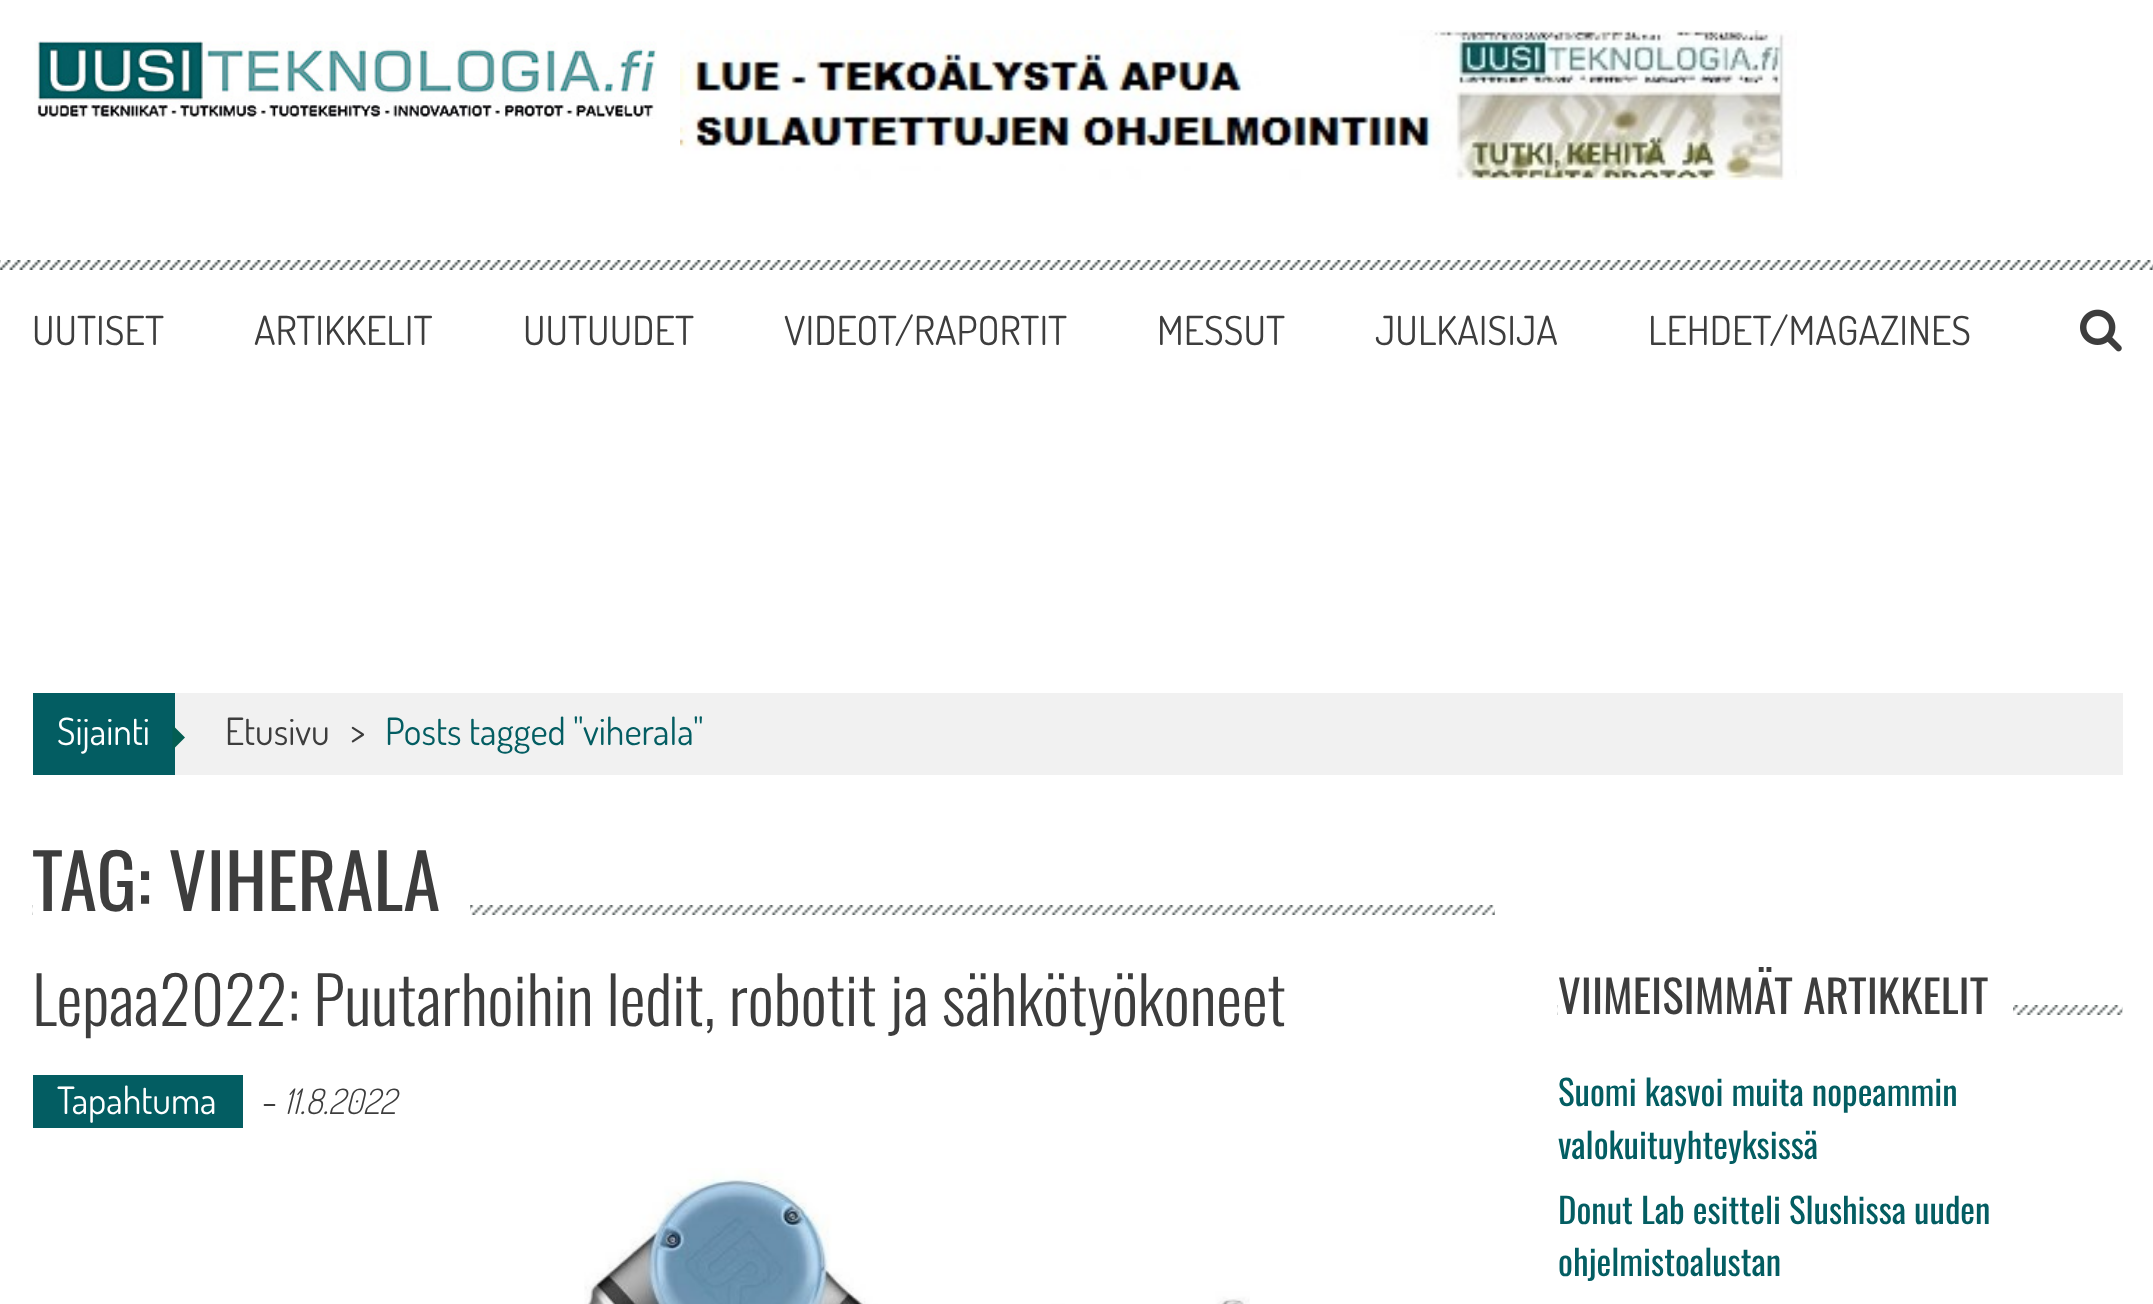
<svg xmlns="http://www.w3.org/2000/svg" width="2153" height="1304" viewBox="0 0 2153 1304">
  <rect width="100%" height="100%" fill="rgb(255,255,255)"/>
  <image x="0" y="260" width="2153" height="10" href="pic1.png"/>
  <image x="34" y="41" width="623" height="78" href="pic2.png"/>
  <image x="680" y="30" width="1117" height="150" href="pic3.png"/>
  <g font-family="Dosis" font-size="40" fill="rgb(61,61,61)">
    <text x="32" y="345">UUTISET</text>
    <text x="254" y="345">ARTIKKELIT</text>
    <text x="523" y="345">UUTUUDET</text>
    <text x="784" y="345">VIDEOT/RAPORTIT</text>
    <text x="1157" y="345">MESSUT</text>
    <text x="1375" y="345">JULKAISIJA</text>
    <text x="1648" y="345">LEHDET/MAGAZINES</text>
  </g>
  <image x="2080" y="309" width="42" height="43" href="pic4.png"/>
  <rect x="175" y="693" width="1948" height="82" fill="rgb(241,241,241)"/>
  <rect x="33" y="693" width="142" height="82" fill="rgb(3,93,98)"/>
  <text x="57" y="745" font-family="Dosis" font-size="37.5" fill="rgb(255,255,255)">Sijainti</text>
  <path d="M172.5 750V725L185 737.5Z" fill="rgb(3,93,82)"/>
  <g font-family="Dosis" font-size="37.5" fill="rgb(61,61,61)">
    <text x="225" y="745">Etusivu</text>
    <text x="350" y="745">&gt;</text>
  </g>
  <text x="385" y="745" font-family="Dosis" font-size="37.5" fill="rgb(3,93,98)">Posts tagged "viherala"</text>
  <image x="32" y="905" width="1463" height="10" href="pic5.png"/>
  <rect x="33" y="905" width="437" height="10" fill="rgb(255,255,255)"/>
  <text x="32" y="911" font-family="Oswald" font-size="75" fill="rgb(61,61,61)">TAG: VIHERALA</text>
  <text x="32" y="1026" font-family="Oswald" font-size="65" font-weight="300" fill="rgb(61,61,61)">Lepaa2022: Puutarhoihin ledit, robotit ja sähkötyökoneet</text>
  <rect x="33" y="1075" width="210" height="53" fill="rgb(3,93,98)"/>
  <text x="57" y="1114" font-family="Dosis" font-size="37.5" fill="rgb(255,255,255)">Tapahtuma</text>
  <text x="262" y="1114" font-family="Dosis" font-size="37.5" fill="rgb(61,61,61)">-</text>
  <text x="284" y="1114" font-family="Dosis" font-size="35" font-weight="300" font-style="italic" fill="rgb(61,61,61)">11.8.2022</text>
  <image x="584" y="1168" width="666" height="136" href="pic6.png"/>
  <image x="1557" y="1005" width="566" height="10" href="pic7.png"/>
  <rect x="1558" y="1005" width="455" height="10" fill="rgb(255,255,255)"/>
  <text x="1558" y="1014" font-family="Oswald" font-size="45" fill="rgb(61,61,61)">VIIMEISIMMÄT ARTIKKELIT</text>
  <g font-family="Oswald" font-size="35" fill="rgb(3,93,98)">
    <text>
      <tspan x="1558" y="1106">Suomi kasvoi muita nopeammin</tspan>
      <tspan x="1558" y="1159">valokuituyhteyksissä</tspan>
      <tspan x="1558" y="1224">Donut Lab esitteli Slushissa uuden</tspan>
      <tspan x="1558" y="1276">ohjelmistoalustan</tspan>
    </text>
  </g>
</svg>
